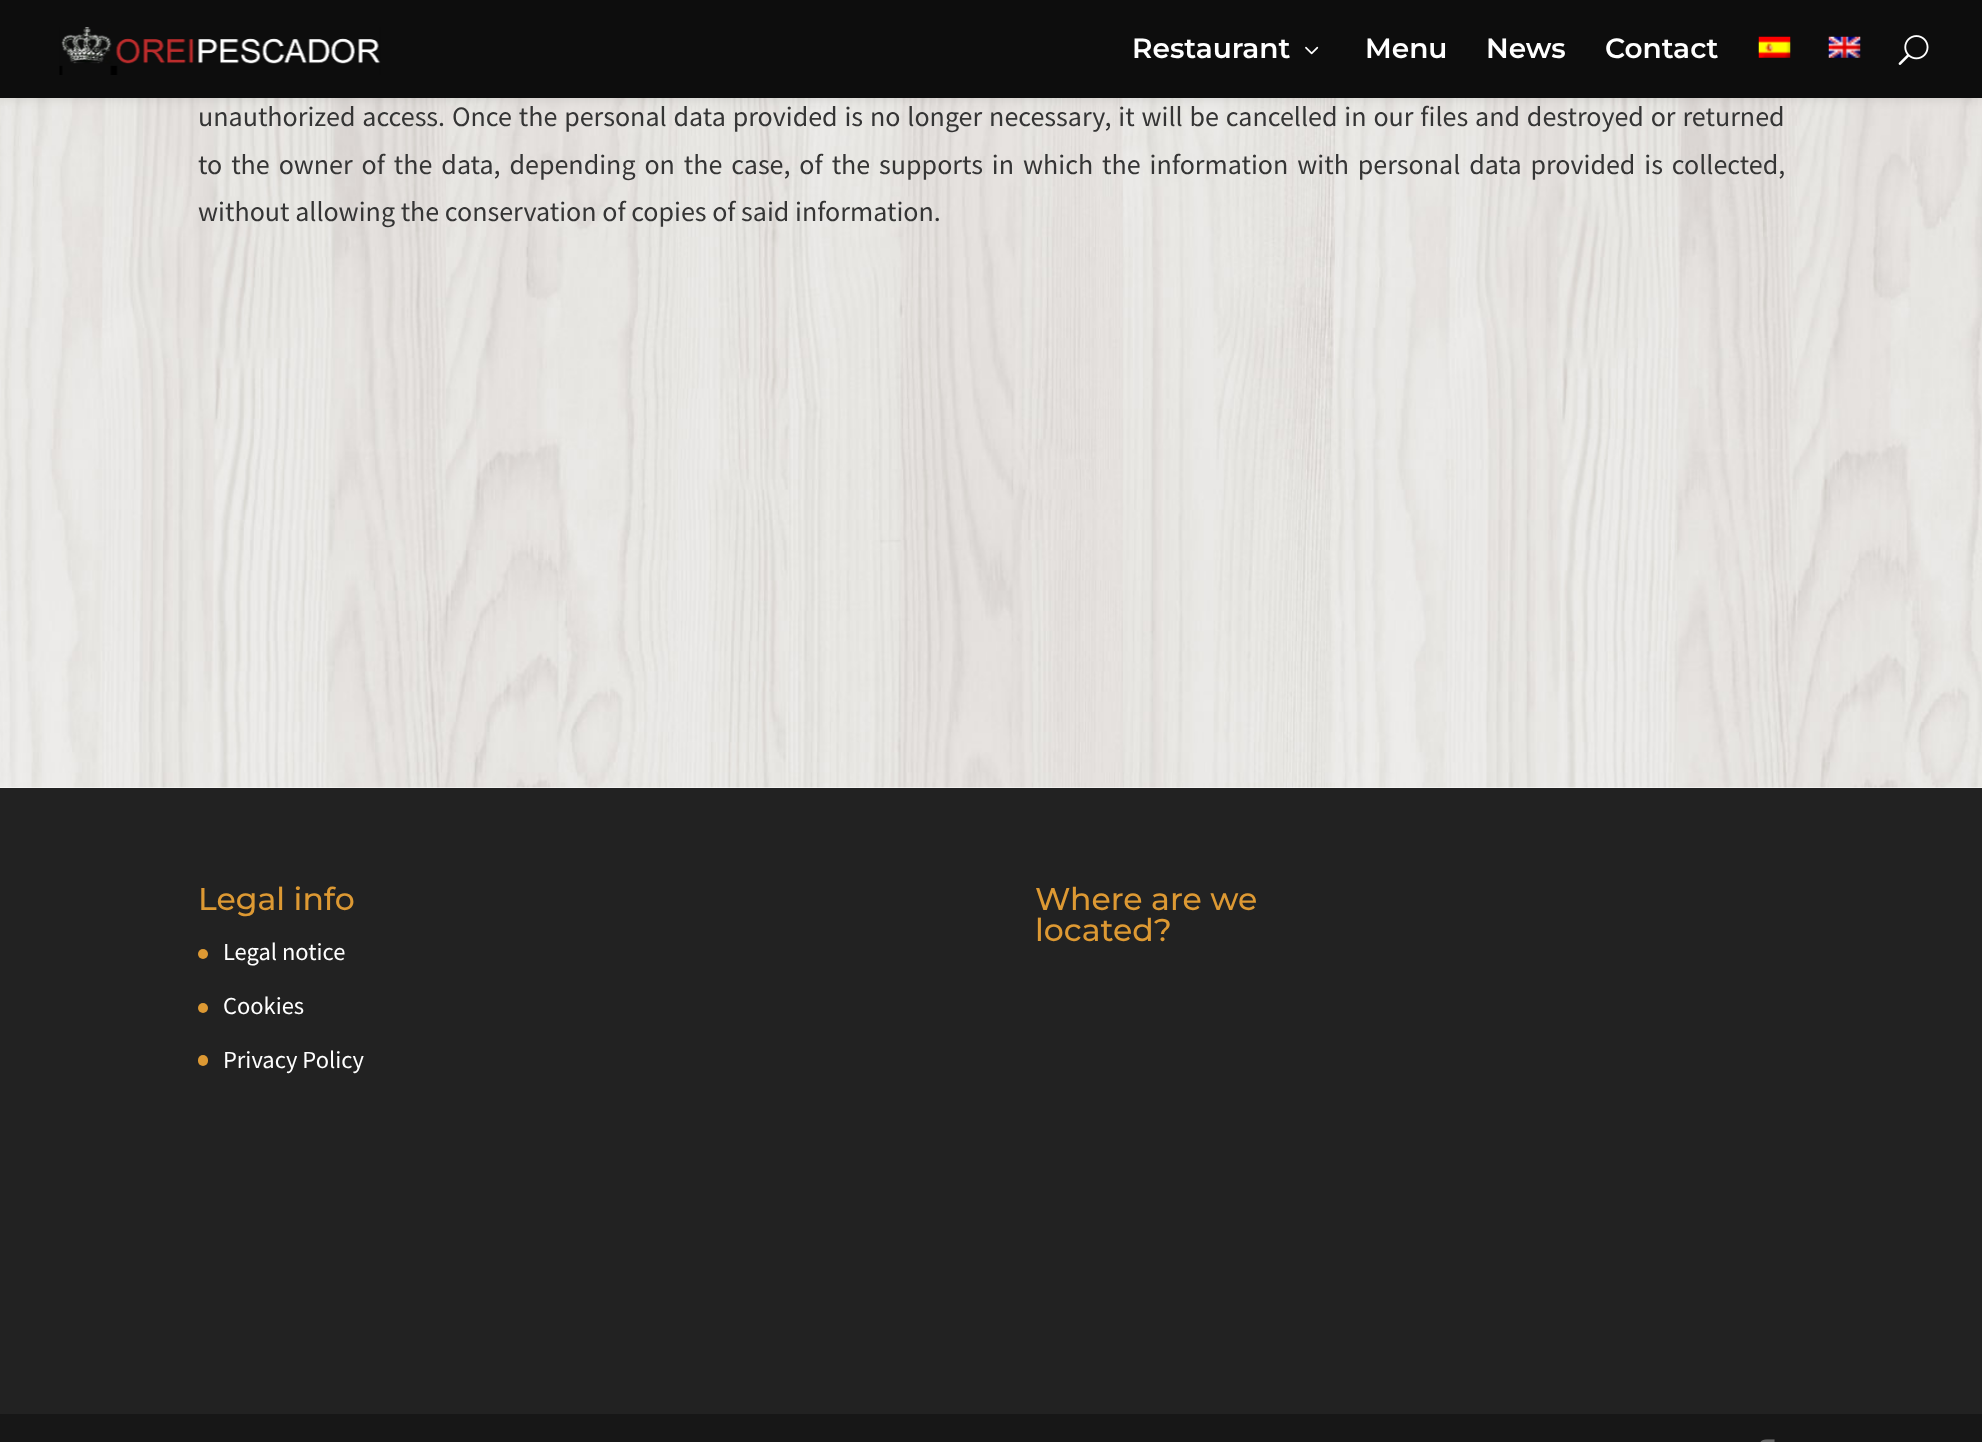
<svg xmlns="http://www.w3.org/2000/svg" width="1982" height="1442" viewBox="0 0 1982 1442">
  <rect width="100%" height="100%" fill="rgb(255,255,255)"/>
  <image x="0" y="98" width="1982" height="690" href="pic6.png"/>
  <rect x="0" y="0" width="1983" height="98" fill="rgba(0,0,0,0.1)" filter="blur(6px)"/>
  <rect x="0" y="0" width="1982" height="98" fill="rgb(13,13,13)"/>
  <image x="59" y="27" width="322" height="48" href="pic1.png"/>
  <text x="1132" y="58" font-family="Montserrat" font-size="28" font-weight="600" fill="rgb(255,255,255)">Restaurant</text>
  <image x="1305" y="46" width="14" height="9" href="pic2.png"/>
  <g font-family="Montserrat" font-size="28" font-weight="600" fill="rgb(255,255,255)">
    <text x="1365" y="58">Menu</text>
    <text x="1486" y="58">News</text>
    <text x="1605" y="58">Contact</text>
  </g>
  <image x="1758" y="36" width="33" height="22" href="pic3.png"/>
  <image x="1828" y="36" width="33" height="22" href="pic4.png"/>
  <image x="1898" y="35" width="31" height="30" href="pic5.png"/>
  <g font-family="Source Sans Pro" font-size="28" fill="rgb(53,53,53)">
    <text>
      <tspan x="198" y="126" word-spacing="1.25">unauthorized access. Once the personal data provided is no longer necessary, it will be cancelled in our files and destroyed or returned</tspan>
      <tspan x="198" y="174" word-spacing="3.3">to the owner of the data, depending on the case, of the supports in which the information with personal data provided is collected,</tspan>
      <tspan x="198" y="221">without allowing the conservation of copies of said information.</tspan>
    </text>
  </g>
  <rect x="0" y="788" width="1982" height="626" fill="rgb(34,34,34)"/>
  <text x="198" y="910" font-family="Montserrat" font-size="31.5" font-weight="500" fill="rgb(221,153,51)">Legal info</text>
  <circle cx="203" cy="954" r="5" fill="rgb(221,153,51)"/>
  <text x="223" y="960" font-family="Source Sans Pro" font-size="24.5" fill="rgb(255,255,255)">Legal notice</text>
  <circle cx="203" cy="1008" r="5" fill="rgb(221,153,51)"/>
  <text x="223" y="1014" font-family="Source Sans Pro" font-size="24.5" fill="rgb(255,255,255)">Cookies</text>
  <rect x="198" y="1055" width="10" height="11" rx="5" fill="rgb(221,153,51)"/>
  <text x="223" y="1068" font-family="Source Sans Pro" font-size="24.5" fill="rgb(255,255,255)">Privacy Policy</text>
  <g font-family="Montserrat" font-size="31.5" font-weight="500" fill="rgb(221,153,51)">
    <text>
      <tspan x="1035" y="910">Where are we</tspan>
      <tspan x="1035" y="941">located?</tspan>
    </text>
  </g>
  <rect x="0" y="1414" width="1982" height="28" fill="rgb(23,23,23)"/>
  <image x="1760" y="1439" width="15" height="3" href="pic7.png"/>
</svg>
